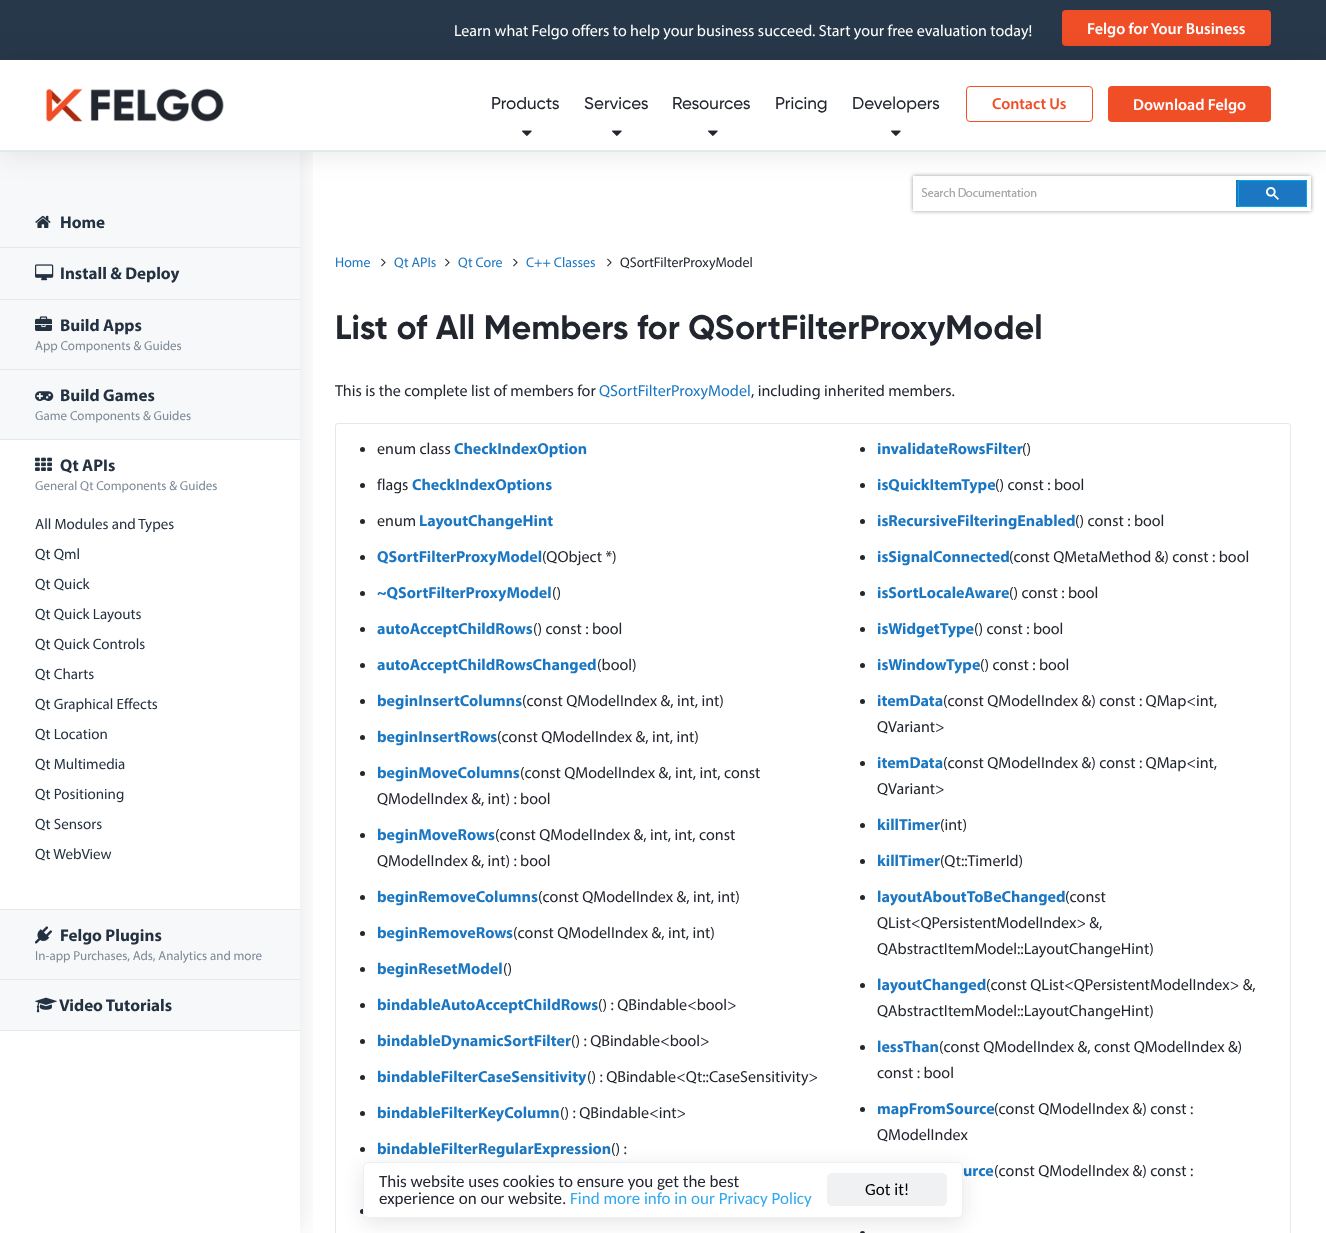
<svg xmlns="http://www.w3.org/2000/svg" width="1326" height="1233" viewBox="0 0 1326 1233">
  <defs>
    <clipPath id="clip1"><rect x="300" y="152" width="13" height="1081"/></clipPath>
    <clipPath id="clip2"><path d="M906 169H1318V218H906ZM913 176H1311V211H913Z" clip-rule="evenodd"/></clipPath>
  </defs>
  <rect width="100%" height="100%" fill="rgb(255,255,255)"/>
  <rect x="335.5" y="423.5" width="955" height="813" rx="2.5" fill="none" stroke="rgb(226,233,236)"/>
  <g clip-path="url(#clip1)">
    <rect x="0" y="0" width="300" height="1233" fill="rgba(0,0,0,0.1)" filter="blur(15px)"/>
  </g>
  <rect x="0" y="0" width="1326" height="60" fill="rgb(40,56,75)"/>
  <text x="454" y="36" font-family="Myriad" font-size="16" fill="rgb(255,255,255)">Learn what Felgo offers to help your business succeed. Start your free evaluation today!</text>
  <rect x="1062" y="10" width="209" height="36" rx="4" fill="rgb(240,78,38)"/>
  <text x="1087" y="34" font-family="Myriad" font-size="16" font-weight="600" fill="rgb(255,255,255)">Felgo for Your Business</text>
  <rect x="0" y="152" width="300" height="95" fill="rgb(247,248,249)"/>
  <rect x="0" y="60" width="1326" height="92" fill="rgba(0,0,0,0.1)" filter="blur(15px)"/>
  <rect x="0" y="60" width="1326" height="90" fill="rgb(255,255,255)"/>
  <rect x="0" y="150" width="1326" height="2" fill="rgb(226,233,236)"/>
  <image x="45" y="88" width="179" height="34" href="pic1.png"/>
  <text x="491" y="109" font-family="Gilroy" font-size="17" font-weight="500" fill="rgb(34,38,46)">Products</text>
  <image x="522" y="130" width="10" height="6" href="pic2.png"/>
  <text x="584" y="109" font-family="Gilroy" font-size="17" font-weight="500" fill="rgb(34,38,46)">Services</text>
  <image x="612" y="130" width="10" height="6" href="pic2.png"/>
  <text x="672" y="109" font-family="Gilroy" font-size="17" font-weight="500" fill="rgb(34,38,46)">Resources</text>
  <image x="708" y="130" width="10" height="6" href="pic2.png"/>
  <g font-family="Gilroy" font-size="17" font-weight="500" fill="rgb(34,38,46)">
    <text x="775" y="109">Pricing</text>
    <text x="852" y="109">Developers</text>
  </g>
  <image x="891" y="130" width="10" height="6" href="pic2.png"/>
  <g clip-path="url(#clip2)">
    <rect x="913" y="176" width="398" height="35" fill="rgba(0,0,0,0.4)" filter="blur(2px)"/>
  </g>
  <image x="921" y="188" width="116" height="9" href="pic3.png"/>
  <rect x="1236" y="180" width="71" height="27" fill="rgb(28,119,195)"/>
  <rect x="1238.5" y="180.5" width="68" height="26" rx="1.5" fill="none" stroke="rgb(1,169,226)"/>
  <image x="1266" y="187" width="13" height="13" href="pic4.png"/>
  <rect x="966.5" y="86.5" width="126" height="35" rx="3.5" fill="none" stroke="rgb(240,78,38)"/>
  <text x="992" y="109" font-family="Myriad" font-size="16" font-weight="600" fill="rgb(240,78,38)">Contact Us</text>
  <rect x="1108" y="86" width="163" height="36" rx="4" fill="rgb(240,78,38)"/>
  <text x="1133" y="110" font-family="Myriad" font-size="16" font-weight="600" fill="rgb(255,255,255)">Download Felgo</text>
  <rect x="0" y="247" width="300" height="1" fill="rgb(226,233,236)"/>
  <image x="35" y="215" width="16" height="13" href="pic5.png"/>
  <text x="60" y="228" font-family="Myriad" font-size="17" font-weight="bold" fill="rgb(35,49,65)">Home</text>
  <rect x="0" y="248" width="300" height="51" fill="rgb(247,248,249)"/>
  <rect x="0" y="299" width="300" height="1" fill="rgb(226,233,236)"/>
  <image x="35" y="264" width="19" height="17" href="pic6.png"/>
  <text x="60" y="279" font-family="Myriad" font-size="17" font-weight="bold" fill="rgb(35,49,65)">Install &amp; Deploy</text>
  <rect x="0" y="300" width="300" height="69" fill="rgb(247,248,249)"/>
  <rect x="0" y="369" width="300" height="1" fill="rgb(226,233,236)"/>
  <image x="35" y="316" width="17" height="15" href="pic7.png"/>
  <text x="60" y="331" font-family="Myriad" font-size="17" font-weight="bold" fill="rgb(35,49,65)">Build Apps</text>
  <text x="35" y="350" font-family="Myriad" font-size="13" fill="rgb(125,137,150)">App Components &amp; Guides</text>
  <rect x="0" y="370" width="300" height="69" fill="rgb(247,248,249)"/>
  <rect x="0" y="439" width="300" height="1" fill="rgb(226,233,236)"/>
  <image x="35" y="391" width="19" height="10" href="pic8.png"/>
  <text x="60" y="401" font-family="Myriad" font-size="17" font-weight="bold" fill="rgb(35,49,65)">Build Games</text>
  <text x="35" y="420" font-family="Myriad" font-size="13" fill="rgb(125,137,150)">Game Components &amp; Guides</text>
  <rect x="0" y="909" width="300" height="1" fill="rgb(226,233,236)"/>
  <image x="35" y="457" width="17" height="14" href="pic9.png"/>
  <text x="60" y="471" font-family="Myriad" font-size="17" font-weight="bold" fill="rgb(35,49,65)">Qt APIs</text>
  <text x="35" y="490" font-family="Myriad" font-size="13" fill="rgb(125,137,150)">General Qt Components &amp; Guides</text>
  <g font-family="Myriad" font-size="15" fill="rgb(35,49,65)">
    <text x="35" y="529">All Modules and Types</text>
    <text x="35" y="559">Qt Qml</text>
    <text x="35" y="589">Qt Quick</text>
    <text x="35" y="619">Qt Quick Layouts</text>
    <text x="35" y="649">Qt Quick Controls</text>
    <text x="35" y="679">Qt Charts</text>
    <text x="35" y="709">Qt Graphical Effects</text>
    <text x="35" y="739">Qt Location</text>
    <text x="35" y="769">Qt Multimedia</text>
    <text x="35" y="799">Qt Positioning</text>
    <text x="35" y="829">Qt Sensors</text>
    <text x="35" y="859">Qt WebView</text>
  </g>
  <rect x="0" y="910" width="300" height="69" fill="rgb(247,248,249)"/>
  <rect x="0" y="979" width="300" height="1" fill="rgb(226,233,236)"/>
  <image x="35" y="926" width="17" height="18" href="pic10.png"/>
  <text x="60" y="941" font-family="Myriad" font-size="17" font-weight="bold" fill="rgb(35,49,65)">Felgo Plugins</text>
  <text x="35" y="960" font-family="Myriad" font-size="13" fill="rgb(125,137,150)">In-app Purchases, Ads, Analytics and more</text>
  <rect x="0" y="980" width="300" height="50" fill="rgb(247,248,249)"/>
  <rect x="0" y="1030" width="300" height="1" fill="rgb(226,233,236)"/>
  <image x="35" y="997" width="22" height="16" href="pic11.png"/>
  <text x="59" y="1011" font-family="Myriad" font-size="17" font-weight="bold" fill="rgb(35,49,65)">Video Tutorials</text>
  <text x="335" y="267" font-family="Myriad" font-size="14" fill="rgb(28,119,195)">Home</text>
  <image x="381" y="258" width="5" height="9" href="pic12.png"/>
  <text x="394" y="267" font-family="Myriad" font-size="14" fill="rgb(28,119,195)">Qt APIs</text>
  <image x="445" y="258" width="5" height="9" href="pic12.png"/>
  <text x="458" y="267" font-family="Myriad" font-size="14" fill="rgb(28,119,195)">Qt Core</text>
  <image x="513" y="258" width="5" height="9" href="pic12.png"/>
  <text x="526" y="267" font-family="Myriad" font-size="14" fill="rgb(28,119,195)">C++ Classes</text>
  <image x="607" y="258" width="5" height="9" href="pic12.png"/>
  <text x="620" y="267" font-family="Myriad" font-size="14" fill="rgb(34,38,46)">QSortFilterProxyModel</text>
  <text x="335" y="339" font-family="Gilroy" font-size="34" font-weight="bold" fill="rgb(34,38,46)">List of All Members for QSortFilterProxyModel</text>
  <text x="335" y="396" font-family="Myriad" font-size="16" fill="rgb(34,38,46)">This is the complete list of members for</text>
  <text x="599" y="396" font-family="Myriad" font-size="16" fill="rgb(28,119,195)">QSortFilterProxyModel</text>
  <text x="751" y="396" font-family="Myriad" font-size="16" fill="rgb(34,38,46)">, including inherited members.</text>
  <circle cx="362.5" cy="449.5" r="2.5" fill="rgb(34,38,46)"/>
  <text x="377" y="454" font-family="Myriad" font-size="16" fill="rgb(34,38,46)">enum class</text>
  <text x="454" y="454" font-family="Myriad" font-size="16" font-weight="bold" fill="rgb(28,119,195)">CheckIndexOption</text>
  <circle cx="362.5" cy="485.5" r="2.5" fill="rgb(34,38,46)"/>
  <text x="377" y="490" font-family="Myriad" font-size="16" fill="rgb(34,38,46)">flags</text>
  <text x="412" y="490" font-family="Myriad" font-size="16" font-weight="bold" fill="rgb(28,119,195)">CheckIndexOptions</text>
  <circle cx="362.5" cy="521.5" r="2.5" fill="rgb(34,38,46)"/>
  <text x="377" y="526" font-family="Myriad" font-size="16" fill="rgb(34,38,46)">enum</text>
  <text x="419" y="526" font-family="Myriad" font-size="16" font-weight="bold" fill="rgb(28,119,195)">LayoutChangeHint</text>
  <circle cx="362.5" cy="557.5" r="2.5" fill="rgb(34,38,46)"/>
  <text x="377" y="562" font-family="Myriad" font-size="16" font-weight="bold" fill="rgb(28,119,195)">QSortFilterProxyModel</text>
  <text x="542" y="562" font-family="Myriad" font-size="16" fill="rgb(34,38,46)">(QObject *)</text>
  <circle cx="362.5" cy="593.5" r="2.5" fill="rgb(34,38,46)"/>
  <text x="377" y="598" font-family="Myriad" font-size="16" font-weight="bold" fill="rgb(28,119,195)">~QSortFilterProxyModel</text>
  <text x="552" y="598" font-family="Myriad" font-size="16" fill="rgb(34,38,46)">()</text>
  <circle cx="362.5" cy="629.5" r="2.5" fill="rgb(34,38,46)"/>
  <text x="377" y="634" font-family="Myriad" font-size="16" font-weight="bold" fill="rgb(28,119,195)">autoAcceptChildRows</text>
  <text x="533" y="634" font-family="Myriad" font-size="16" fill="rgb(34,38,46)">() const : bool</text>
  <circle cx="362.5" cy="665.5" r="2.5" fill="rgb(34,38,46)"/>
  <text x="377" y="670" font-family="Myriad" font-size="16" font-weight="bold" fill="rgb(28,119,195)">autoAcceptChildRowsChanged</text>
  <text x="597" y="670" font-family="Myriad" font-size="16" fill="rgb(34,38,46)">(bool)</text>
  <circle cx="362.5" cy="701.5" r="2.5" fill="rgb(34,38,46)"/>
  <text x="377" y="706" font-family="Myriad" font-size="16" font-weight="bold" fill="rgb(28,119,195)">beginInsertColumns</text>
  <text x="522" y="706" font-family="Myriad" font-size="16" fill="rgb(34,38,46)">(const QModelIndex &amp;, int, int)</text>
  <circle cx="362.5" cy="737.5" r="2.5" fill="rgb(34,38,46)"/>
  <text x="377" y="742" font-family="Myriad" font-size="16" font-weight="bold" fill="rgb(28,119,195)">beginInsertRows</text>
  <text x="497" y="742" font-family="Myriad" font-size="16" fill="rgb(34,38,46)">(const QModelIndex &amp;, int, int)</text>
  <circle cx="362.5" cy="773.5" r="2.5" fill="rgb(34,38,46)"/>
  <text x="377" y="778" font-family="Myriad" font-size="16" font-weight="bold" fill="rgb(28,119,195)">beginMoveColumns</text>
  <g font-family="Myriad" font-size="16" fill="rgb(34,38,46)">
    <text x="520" y="778">(const QModelIndex &amp;, int, int, const</text>
    <text x="377" y="804">QModelIndex &amp;, int) : bool</text>
  </g>
  <circle cx="362.5" cy="835.5" r="2.5" fill="rgb(34,38,46)"/>
  <text x="377" y="840" font-family="Myriad" font-size="16" font-weight="bold" fill="rgb(28,119,195)">beginMoveRows</text>
  <g font-family="Myriad" font-size="16" fill="rgb(34,38,46)">
    <text x="495" y="840">(const QModelIndex &amp;, int, int, const</text>
    <text x="377" y="866">QModelIndex &amp;, int) : bool</text>
  </g>
  <circle cx="362.5" cy="897.5" r="2.5" fill="rgb(34,38,46)"/>
  <text x="377" y="902" font-family="Myriad" font-size="16" font-weight="bold" fill="rgb(28,119,195)">beginRemoveColumns</text>
  <text x="538" y="902" font-family="Myriad" font-size="16" fill="rgb(34,38,46)">(const QModelIndex &amp;, int, int)</text>
  <circle cx="362.5" cy="933.5" r="2.5" fill="rgb(34,38,46)"/>
  <text x="377" y="938" font-family="Myriad" font-size="16" font-weight="bold" fill="rgb(28,119,195)">beginRemoveRows</text>
  <text x="513" y="938" font-family="Myriad" font-size="16" fill="rgb(34,38,46)">(const QModelIndex &amp;, int, int)</text>
  <circle cx="362.5" cy="969.5" r="2.5" fill="rgb(34,38,46)"/>
  <text x="377" y="974" font-family="Myriad" font-size="16" font-weight="bold" fill="rgb(28,119,195)">beginResetModel</text>
  <text x="503" y="974" font-family="Myriad" font-size="16" fill="rgb(34,38,46)">()</text>
  <circle cx="362.5" cy="1005.5" r="2.5" fill="rgb(34,38,46)"/>
  <text x="377" y="1010" font-family="Myriad" font-size="16" font-weight="bold" fill="rgb(28,119,195)">bindableAutoAcceptChildRows</text>
  <text x="598" y="1010" font-family="Myriad" font-size="16" fill="rgb(34,38,46)">() : QBindable&lt;bool&gt;</text>
  <circle cx="362.5" cy="1041.5" r="2.5" fill="rgb(34,38,46)"/>
  <text x="377" y="1046" font-family="Myriad" font-size="16" font-weight="bold" fill="rgb(28,119,195)">bindableDynamicSortFilter</text>
  <text x="571" y="1046" font-family="Myriad" font-size="16" fill="rgb(34,38,46)">() : QBindable&lt;bool&gt;</text>
  <circle cx="362.5" cy="1077.5" r="2.5" fill="rgb(34,38,46)"/>
  <text x="377" y="1082" font-family="Myriad" font-size="16" font-weight="bold" fill="rgb(28,119,195)">bindableFilterCaseSensitivity</text>
  <text x="587" y="1082" font-family="Myriad" font-size="16" fill="rgb(34,38,46)">() : QBindable&lt;Qt::CaseSensitivity&gt;</text>
  <circle cx="362.5" cy="1113.5" r="2.5" fill="rgb(34,38,46)"/>
  <text x="377" y="1118" font-family="Myriad" font-size="16" font-weight="bold" fill="rgb(28,119,195)">bindableFilterKeyColumn</text>
  <text x="560" y="1118" font-family="Myriad" font-size="16" fill="rgb(34,38,46)">() : QBindable&lt;int&gt;</text>
  <circle cx="362.5" cy="1149.5" r="2.5" fill="rgb(34,38,46)"/>
  <text x="377" y="1154" font-family="Myriad" font-size="16" font-weight="bold" fill="rgb(28,119,195)">bindableFilterRegularExpression</text>
  <text x="611" y="1154" font-family="Myriad" font-size="16" fill="rgb(34,38,46)">() :</text>
  <circle cx="362.5" cy="1211.5" r="2.5" fill="rgb(34,38,46)"/>
  <circle cx="862.5" cy="449.5" r="2.5" fill="rgb(34,38,46)"/>
  <text x="877" y="454" font-family="Myriad" font-size="16" font-weight="bold" fill="rgb(28,119,195)">invalidateRowsFilter</text>
  <text x="1022" y="454" font-family="Myriad" font-size="16" fill="rgb(34,38,46)">()</text>
  <circle cx="862.5" cy="485.5" r="2.5" fill="rgb(34,38,46)"/>
  <text x="877" y="490" font-family="Myriad" font-size="16" font-weight="bold" fill="rgb(28,119,195)">isQuickItemType</text>
  <text x="995" y="490" font-family="Myriad" font-size="16" fill="rgb(34,38,46)">() const : bool</text>
  <circle cx="862.5" cy="521.5" r="2.5" fill="rgb(34,38,46)"/>
  <text x="877" y="526" font-family="Myriad" font-size="16" font-weight="bold" fill="rgb(28,119,195)">isRecursiveFilteringEnabled</text>
  <text x="1075" y="526" font-family="Myriad" font-size="16" fill="rgb(34,38,46)">() const : bool</text>
  <circle cx="862.5" cy="557.5" r="2.5" fill="rgb(34,38,46)"/>
  <text x="877" y="562" font-family="Myriad" font-size="16" font-weight="bold" fill="rgb(28,119,195)">isSignalConnected</text>
  <text x="1009" y="562" font-family="Myriad" font-size="16" fill="rgb(34,38,46)">(const QMetaMethod &amp;) const : bool</text>
  <circle cx="862.5" cy="593.5" r="2.5" fill="rgb(34,38,46)"/>
  <text x="877" y="598" font-family="Myriad" font-size="16" font-weight="bold" fill="rgb(28,119,195)">isSortLocaleAware</text>
  <text x="1009" y="598" font-family="Myriad" font-size="16" fill="rgb(34,38,46)">() const : bool</text>
  <circle cx="862.5" cy="629.5" r="2.5" fill="rgb(34,38,46)"/>
  <text x="877" y="634" font-family="Myriad" font-size="16" font-weight="bold" fill="rgb(28,119,195)">isWidgetType</text>
  <text x="974" y="634" font-family="Myriad" font-size="16" fill="rgb(34,38,46)">() const : bool</text>
  <circle cx="862.5" cy="665.5" r="2.5" fill="rgb(34,38,46)"/>
  <text x="877" y="670" font-family="Myriad" font-size="16" font-weight="bold" fill="rgb(28,119,195)">isWindowType</text>
  <text x="980" y="670" font-family="Myriad" font-size="16" fill="rgb(34,38,46)">() const : bool</text>
  <circle cx="862.5" cy="701.5" r="2.5" fill="rgb(34,38,46)"/>
  <text x="877" y="706" font-family="Myriad" font-size="16" font-weight="bold" fill="rgb(28,119,195)">itemData</text>
  <g font-family="Myriad" font-size="16" fill="rgb(34,38,46)">
    <text x="943" y="706">(const QModelIndex &amp;) const : QMap&lt;int,</text>
    <text x="877" y="732">QVariant&gt;</text>
  </g>
  <circle cx="862.5" cy="763.5" r="2.5" fill="rgb(34,38,46)"/>
  <text x="877" y="768" font-family="Myriad" font-size="16" font-weight="bold" fill="rgb(28,119,195)">itemData</text>
  <g font-family="Myriad" font-size="16" fill="rgb(34,38,46)">
    <text x="943" y="768">(const QModelIndex &amp;) const : QMap&lt;int,</text>
    <text x="877" y="794">QVariant&gt;</text>
  </g>
  <circle cx="862.5" cy="825.5" r="2.5" fill="rgb(34,38,46)"/>
  <text x="877" y="830" font-family="Myriad" font-size="16" font-weight="bold" fill="rgb(28,119,195)">killTimer</text>
  <text x="940" y="830" font-family="Myriad" font-size="16" fill="rgb(34,38,46)">(int)</text>
  <circle cx="862.5" cy="861.5" r="2.5" fill="rgb(34,38,46)"/>
  <text x="877" y="866" font-family="Myriad" font-size="16" font-weight="bold" fill="rgb(28,119,195)">killTimer</text>
  <text x="940" y="866" font-family="Myriad" font-size="16" fill="rgb(34,38,46)">(Qt::TimerId)</text>
  <circle cx="862.5" cy="897.5" r="2.5" fill="rgb(34,38,46)"/>
  <text x="877" y="902" font-family="Myriad" font-size="16" font-weight="bold" fill="rgb(28,119,195)">layoutAboutToBeChanged</text>
  <g font-family="Myriad" font-size="16" fill="rgb(34,38,46)">
    <text x="1065" y="902">(const</text>
    <text>
      <tspan x="877" y="928">QList&lt;QPersistentModelIndex&gt; &amp;,</tspan>
      <tspan x="877" y="954">QAbstractItemModel::LayoutChangeHint)</tspan>
    </text>
  </g>
  <circle cx="862.5" cy="985.5" r="2.5" fill="rgb(34,38,46)"/>
  <text x="877" y="990" font-family="Myriad" font-size="16" font-weight="bold" fill="rgb(28,119,195)">layoutChanged</text>
  <g font-family="Myriad" font-size="16" fill="rgb(34,38,46)">
    <text x="986" y="990">(const QList&lt;QPersistentModelIndex&gt; &amp;,</text>
    <text x="877" y="1016">QAbstractItemModel::LayoutChangeHint)</text>
  </g>
  <circle cx="862.5" cy="1047.5" r="2.5" fill="rgb(34,38,46)"/>
  <text x="877" y="1052" font-family="Myriad" font-size="16" font-weight="bold" fill="rgb(28,119,195)">lessThan</text>
  <g font-family="Myriad" font-size="16" fill="rgb(34,38,46)">
    <text x="939" y="1052">(const QModelIndex &amp;, const QModelIndex &amp;)</text>
    <text x="877" y="1078">const : bool</text>
  </g>
  <circle cx="862.5" cy="1109.5" r="2.5" fill="rgb(34,38,46)"/>
  <text x="877" y="1114" font-family="Myriad" font-size="16" font-weight="bold" fill="rgb(28,119,195)">mapFromSource</text>
  <g font-family="Myriad" font-size="16" fill="rgb(34,38,46)">
    <text x="994" y="1114">(const QModelIndex &amp;) const :</text>
    <text x="877" y="1140">QModelIndex</text>
  </g>
  <text x="963" y="1176" font-family="Myriad" font-size="16" font-weight="bold" fill="rgb(28,119,195)">urce</text>
  <text x="994" y="1176" font-family="Myriad" font-size="16" fill="rgb(34,38,46)">(const QModelIndex &amp;) const :</text>
  <circle cx="862.5" cy="1233.5" r="2.5" fill="rgb(34,38,46)"/>
  <rect x="363" y="1167" width="600" height="56" rx="5" fill="rgba(0,0,0,0.1)" filter="blur(10px)"/>
  <rect x="363.5" y="1162.5" width="599" height="55" rx="4.5" fill="rgb(255,255,255)" stroke="rgb(234,240,246)"/>
  <g font-family="Carlito" font-size="17" fill="rgb(34,38,46)">
    <text>
      <tspan x="379" y="1187">This website uses cookies to ensure you get the best</tspan>
      <tspan x="379" y="1204">experience on our website.</tspan>
    </text>
  </g>
  <text x="570" y="1204" font-family="Carlito" font-size="17" fill="rgb(49,168,240)">Find more info in our Privacy Policy</text>
  <rect x="827" y="1173" width="120" height="33" rx="5" fill="rgb(240,241,242)"/>
  <text x="865" y="1195" font-family="Carlito" font-size="17" fill="rgb(0,0,0)">Got it!</text>
</svg>
